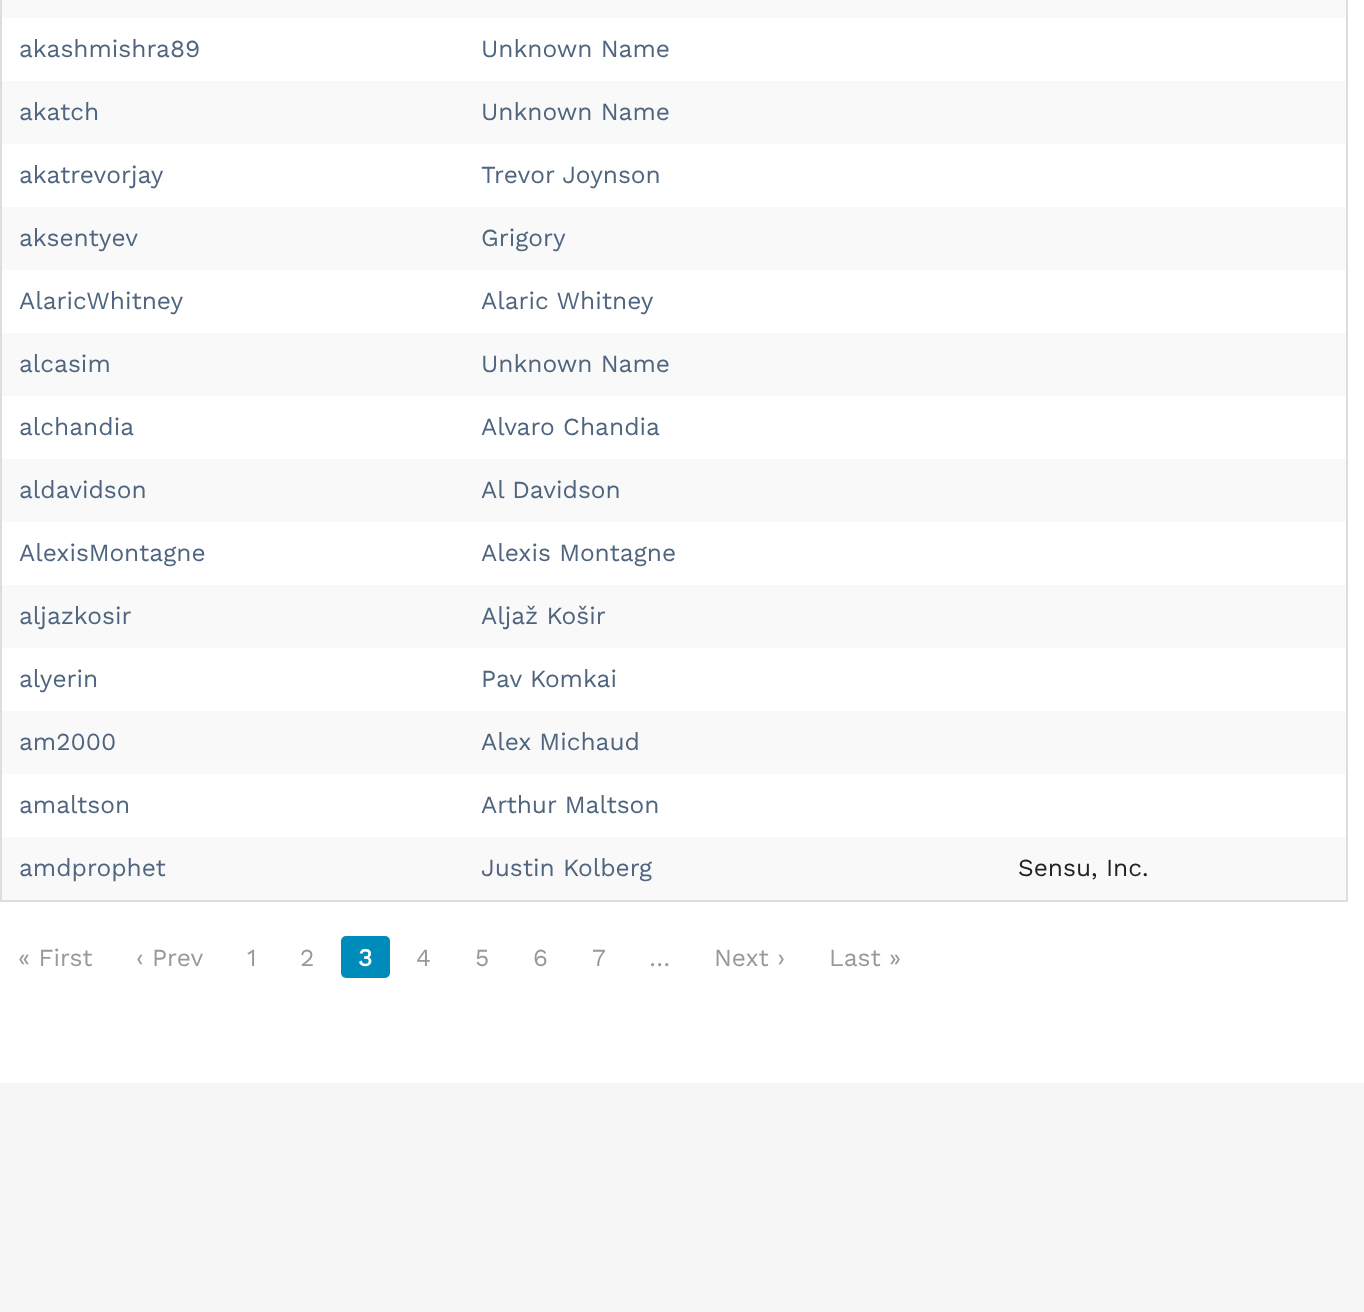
<svg xmlns="http://www.w3.org/2000/svg" width="1364" height="1312" viewBox="0 0 1364 1312">
  <rect width="100%" height="100%" fill="rgb(255,255,255)"/>
  <rect x="1346" y="0" width="2" height="901" fill="rgb(221,221,221)"/>
  <rect x="0" y="900" width="1348" height="2" fill="rgb(221,221,221)"/>
  <rect x="0" y="0" width="2" height="901" fill="rgb(221,221,221)"/>
  <rect x="2" y="0" width="1344" height="18" fill="rgb(249,249,249)"/>
  <g font-family="Work Sans" font-size="24.5" fill="rgb(79,101,127)">
    <text x="19" y="57">akashmishra89</text>
    <text x="481" y="57">Unknown Name</text>
  </g>
  <rect x="2" y="81" width="1344" height="63" fill="rgb(249,249,249)"/>
  <g font-family="Work Sans" font-size="24.5" fill="rgb(79,101,127)">
    <text x="19" y="120">akatch</text>
    <text x="481" y="120">Unknown Name</text>
    <text x="19" y="183">akatrevorjay</text>
    <text x="481" y="183">Trevor Joynson</text>
  </g>
  <rect x="2" y="207" width="1344" height="63" fill="rgb(249,249,249)"/>
  <g font-family="Work Sans" font-size="24.5" fill="rgb(79,101,127)">
    <text x="19" y="246">aksentyev</text>
    <text x="481" y="246">Grigory</text>
    <text x="19" y="309">AlaricWhitney</text>
    <text x="481" y="309">Alaric Whitney</text>
  </g>
  <rect x="2" y="333" width="1344" height="63" fill="rgb(249,249,249)"/>
  <g font-family="Work Sans" font-size="24.5" fill="rgb(79,101,127)">
    <text x="19" y="372">alcasim</text>
    <text x="481" y="372">Unknown Name</text>
    <text x="19" y="435">alchandia</text>
    <text x="481" y="435">Alvaro Chandia</text>
  </g>
  <rect x="2" y="459" width="1344" height="63" fill="rgb(249,249,249)"/>
  <g font-family="Work Sans" font-size="24.5" fill="rgb(79,101,127)">
    <text x="19" y="498">aldavidson</text>
    <text x="481" y="498">Al Davidson</text>
    <text x="19" y="561">AlexisMontagne</text>
    <text x="481" y="561">Alexis Montagne</text>
  </g>
  <rect x="2" y="585" width="1344" height="63" fill="rgb(249,249,249)"/>
  <g font-family="Work Sans" font-size="24.5" fill="rgb(79,101,127)">
    <text x="19" y="624">aljazkosir</text>
    <text x="481" y="624">Aljaž Košir</text>
    <text x="19" y="687">alyerin</text>
    <text x="481" y="687">Pav Komkai</text>
  </g>
  <rect x="2" y="711" width="1344" height="63" fill="rgb(249,249,249)"/>
  <g font-family="Work Sans" font-size="24.5" fill="rgb(79,101,127)">
    <text x="19" y="750">am2000</text>
    <text x="481" y="750">Alex Michaud</text>
    <text x="19" y="813">amaltson</text>
    <text x="481" y="813">Arthur Maltson</text>
  </g>
  <rect x="2" y="837" width="1344" height="63" fill="rgb(249,249,249)"/>
  <g font-family="Work Sans" font-size="24.5" fill="rgb(79,101,127)">
    <text x="19" y="876">amdprophet</text>
    <text x="481" y="876">Justin Kolberg</text>
  </g>
  <text x="1018" y="876" font-family="Work Sans" font-size="24.5" fill="rgb(34,34,34)">Sensu, Inc.</text>
  <g font-family="Work Sans" font-size="24.5" fill="rgb(153,153,153)">
    <text x="18" y="966">« First</text>
    <text x="136" y="966">‹ Prev</text>
    <text x="247" y="966">1</text>
    <text x="300" y="966">2</text>
  </g>
  <rect x="341" y="936" width="49" height="42" rx="5" fill="rgb(0,140,186)"/>
  <text x="358" y="966" font-family="Work Sans" font-size="24.5" font-weight="bold" fill="rgb(255,255,255)">3</text>
  <g font-family="Work Sans" font-size="24.5" fill="rgb(153,153,153)">
    <text x="416" y="966">4</text>
    <text x="475" y="966">5</text>
    <text x="533" y="966">6</text>
    <text x="592" y="966">7</text>
    <text x="649" y="966">…</text>
    <text x="714" y="966">Next ›</text>
    <text x="829" y="966">Last »</text>
  </g>
  <rect x="0" y="1083" width="1364" height="229" fill="rgb(246,246,246)"/>
</svg>
